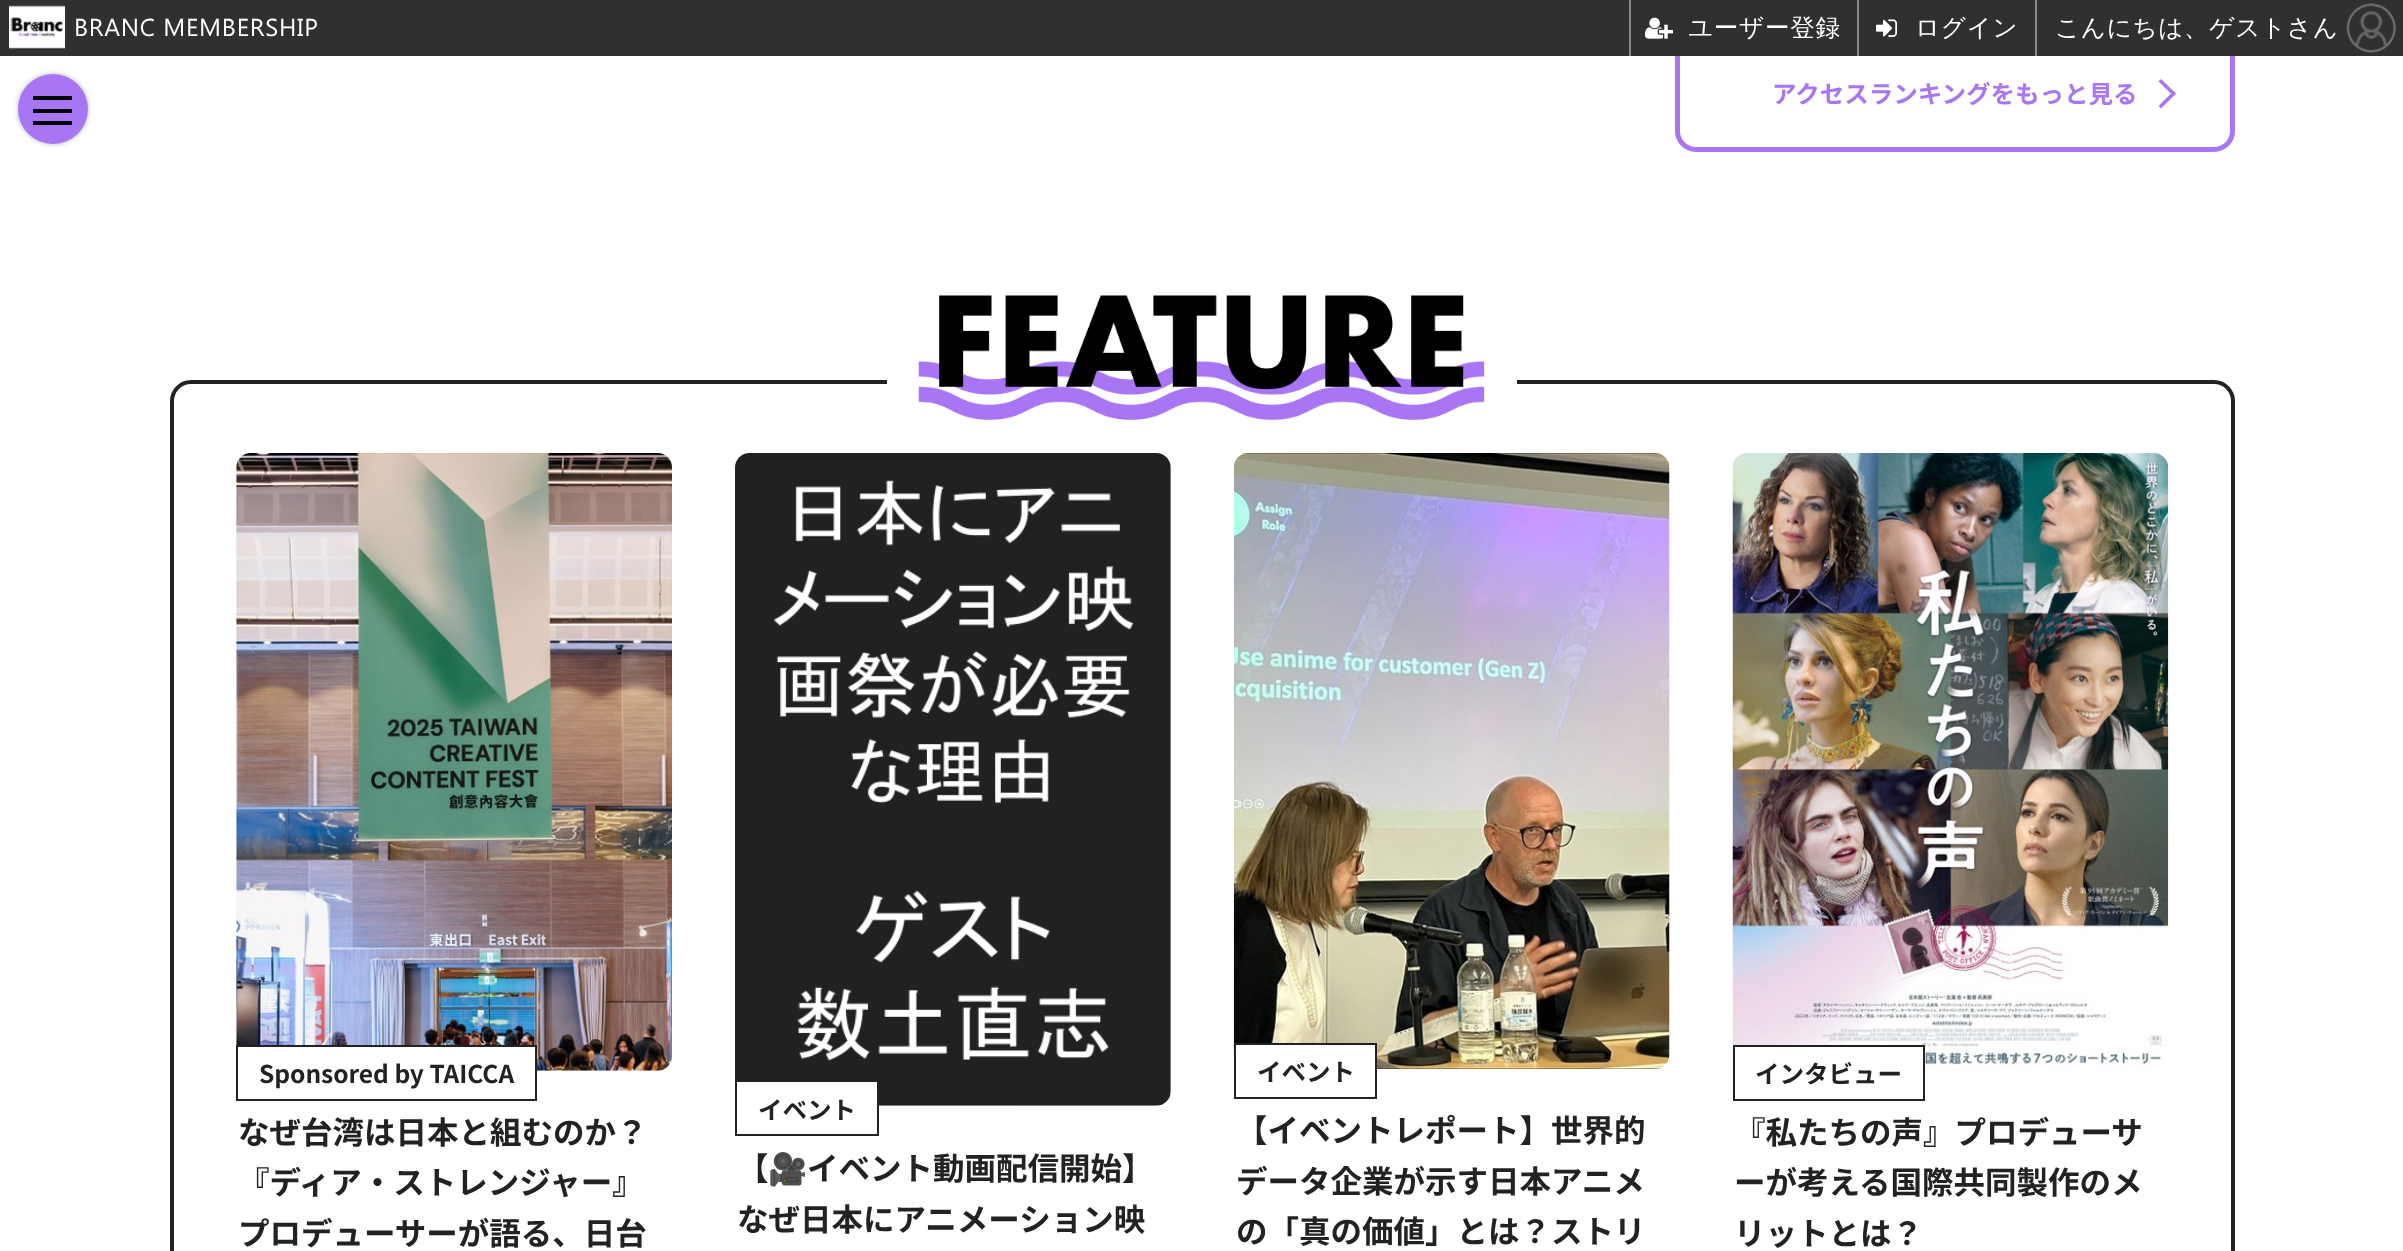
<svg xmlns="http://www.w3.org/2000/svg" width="2403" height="1251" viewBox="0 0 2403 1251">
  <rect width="100%" height="100%" fill="rgb(255,255,255)"/>
  <rect x="1677.5" y="-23.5" width="555" height="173" rx="18.5" fill="none" stroke="rgb(168,118,245)" stroke-width="5"/>
  <rect x="0" y="0" width="2403" height="56" fill="rgb(48,48,48)"/>
  <image x="9" y="5" width="56" height="44" href="pic1.png"/>
  <text x="74" y="36" font-family="Segoe UI" font-size="24.5" letter-spacing="0.75" fill="rgb(255,255,255)">BRANC MEMBERSHIP</text>
  <rect x="1629" y="0" width="2" height="56" fill="rgb(136,136,136)"/>
  <image x="1645" y="17" width="28" height="22" href="pic2.png"/>
  <text x="1688" y="36" font-family="WenQuanYi Zen Hei" font-size="24.5" font-weight="500" letter-spacing="0.75" fill="rgb(255,255,255)">ユーザー登録</text>
  <rect x="2035" y="0" width="2" height="56" fill="rgb(136,136,136)"/>
  <rect x="1857" y="0" width="2" height="56" fill="rgb(136,136,136)"/>
  <image x="1876" y="19" width="21" height="18" href="pic3.png"/>
  <g font-family="WenQuanYi Zen Hei" font-size="24.5" font-weight="500" letter-spacing="0.75" fill="rgb(255,255,255)">
    <text x="1915" y="36">ログイン</text>
    <text x="2055" y="36">こんにちは、ゲストさん</text>
  </g>
  <image x="2346" y="3" width="50" height="50" href="pic4.png"/>
  <rect x="18" y="74" width="70" height="70" rx="35" fill="rgba(0,0,0,0.3)" filter="blur(2.5px)"/>
  <circle cx="53" cy="109" r="35" fill="rgb(168,118,245)"/>
  <rect x="33" y="96" width="39" height="4" fill="rgb(0,0,0)"/>
  <rect x="33" y="109" width="39" height="4" fill="rgb(0,0,0)"/>
  <rect x="33" y="121" width="39" height="4" fill="rgb(0,0,0)"/>
  <text x="1772" y="103" font-family="Noto Sans JP" font-size="24.5" font-weight="bold" fill="rgb(168,118,245)">アクセスランキングをもっと見る</text>
  <path d="M2161 79L2176 93.5L2173.5 96L2158.5 81.5Z" fill="rgb(168,118,245)"/>
  <path d="M2173.5 91L2176 93.5L2161 108.5L2158.5 106Z" fill="rgb(168,118,245)"/>
  <rect x="172" y="382" width="2061" height="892" rx="19" fill="none" stroke="rgb(34,34,34)" stroke-width="4"/>
  <rect x="887" y="380" width="630" height="4" fill="rgb(255,255,255)"/>
  <image x="918" y="295" width="567" height="125" href="pic5.png"/>
  <image x="236" y="453" width="436" height="618" href="pic6.png"/>
  <rect x="238" y="1047" width="297" height="24" fill="rgb(255,255,255)"/>
  <rect x="237" y="1046" width="299" height="54" fill="none" stroke="rgb(34,34,34)" stroke-width="2"/>
  <text x="259" y="1083" font-family="Noto Sans JP" font-size="24.5" font-weight="bold" fill="rgb(34,34,34)">Sponsored by TAICCA</text>
  <g font-family="Noto Sans JP" font-size="31.5" font-weight="bold" fill="rgb(34,34,34)">
    <text>
      <tspan x="238" y="1144">なぜ台湾は日本と組むのか？</tspan>
      <tspan x="238" y="1194">『ディア・ストレンジャー』</tspan>
      <tspan x="238" y="1245">プロデューサーが語る、日台</tspan>
    </text>
  </g>
  <image x="735" y="453" width="436" height="653" href="pic7.png"/>
  <rect x="737" y="1082" width="140" height="24" fill="rgb(255,255,255)"/>
  <rect x="736" y="1081" width="142" height="54" fill="none" stroke="rgb(34,34,34)" stroke-width="2"/>
  <text x="758" y="1119" font-family="Noto Sans JP" font-size="24.5" font-weight="bold" fill="rgb(34,34,34)">イベント</text>
  <text x="737" y="1180" font-family="Noto Sans JP" font-size="31.5" font-weight="bold" fill="rgb(34,34,34)">【</text>
  <text x="768" y="1180" font-family="Noto Color Emoji" font-size="31.5" font-weight="bold" fill="rgb(34,34,34)">🎥</text>
  <g font-family="Noto Sans JP" font-size="31.5" font-weight="bold" fill="rgb(34,34,34)">
    <text x="807" y="1180">イベント動画配信開始】</text>
    <text x="737" y="1231">なぜ日本にアニメーション映</text>
  </g>
  <image x="1233" y="453" width="437" height="616" href="pic8.png"/>
  <rect x="1236" y="1045" width="139" height="24" fill="rgb(255,255,255)"/>
  <rect x="1235" y="1044" width="141" height="54" fill="none" stroke="rgb(34,34,34)" stroke-width="2"/>
  <text x="1257" y="1081" font-family="Noto Sans JP" font-size="24.5" font-weight="bold" fill="rgb(34,34,34)">イベント</text>
  <g font-family="Noto Sans JP" font-size="31.5" font-weight="bold" fill="rgb(34,34,34)">
    <text>
      <tspan x="1236" y="1142">【イベントレポート】世界的</tspan>
      <tspan x="1236" y="1193">データ企業が示す日本アニメ</tspan>
      <tspan x="1236" y="1243">の「真の価値」とは？ストリ</tspan>
    </text>
  </g>
  <image x="1732" y="453" width="437" height="618" href="pic9.png"/>
  <rect x="1735" y="1047" width="188" height="24" fill="rgb(255,255,255)"/>
  <rect x="1734" y="1046" width="190" height="54" fill="none" stroke="rgb(34,34,34)" stroke-width="2"/>
  <text x="1755" y="1083" font-family="Noto Sans JP" font-size="24.5" font-weight="bold" fill="rgb(34,34,34)">インタビュー</text>
  <g font-family="Noto Sans JP" font-size="31.5" font-weight="bold" fill="rgb(34,34,34)">
    <text>
      <tspan x="1734" y="1144">『私たちの声』プロデューサ</tspan>
      <tspan x="1734" y="1194">ーが考える国際共同製作のメ</tspan>
      <tspan x="1734" y="1245">リットとは？</tspan>
    </text>
  </g>
</svg>
